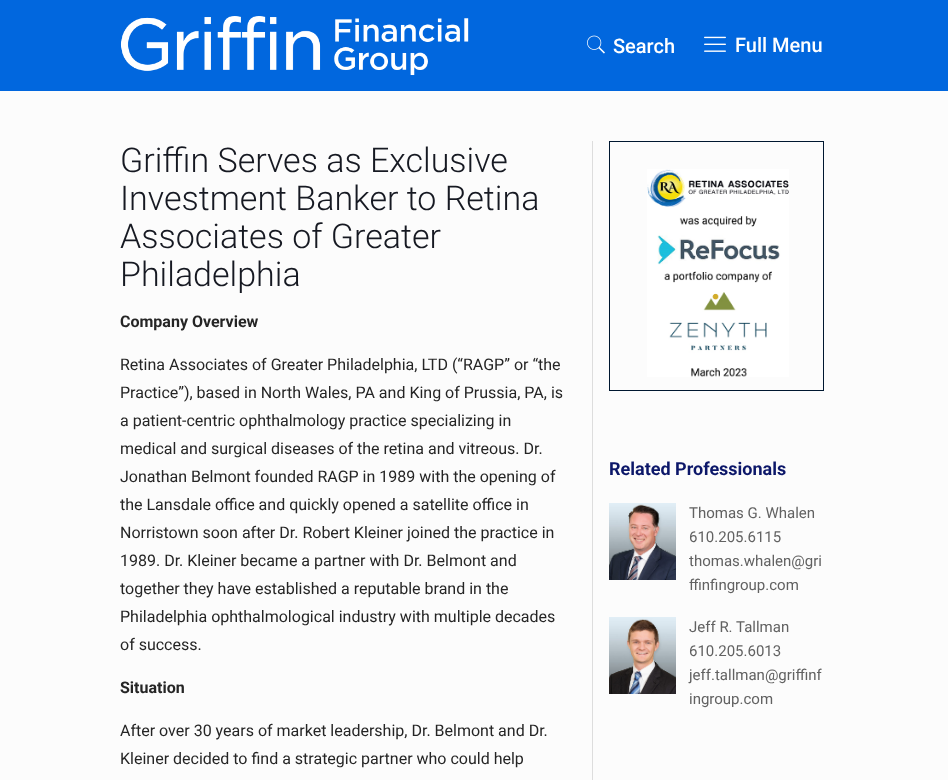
<svg xmlns="http://www.w3.org/2000/svg" width="948" height="780" viewBox="0 0 948 780">
  <rect width="100%" height="100%" fill="rgb(252,252,252)"/>
  <rect x="0" y="0" width="948" height="91" fill="rgb(1,103,222)"/>
  <image x="120" y="16" width="349" height="60" href="pic1.png"/>
  <image x="587" y="35" width="18" height="19" href="pic2.png"/>
  <text x="613" y="53" font-family="Roboto" font-size="20" font-weight="500" fill="rgb(255,255,255)">Search</text>
  <image x="704" y="36" width="22" height="16" href="pic3.png"/>
  <text x="735" y="52" font-family="Roboto" font-size="20" font-weight="500" fill="rgb(255,255,255)">Full Menu</text>
  <g font-family="Roboto" font-size="34" font-weight="300" fill="rgb(22,25,34)">
    <text>
      <tspan x="120" y="172">Griffin Serves as Exclusive</tspan>
      <tspan x="120" y="210">Investment Banker to Retina</tspan>
      <tspan x="120" y="248">Associates of Greater</tspan>
      <tspan x="120" y="286">Philadelphia</tspan>
    </text>
  </g>
  <text x="120" y="327" font-family="Roboto" font-size="16" font-weight="bold" fill="rgb(37,37,37)">Company Overview</text>
  <g font-family="Roboto" font-size="16" fill="rgb(37,37,37)">
    <text>
      <tspan x="120" y="370">Retina Associates of Greater Philadelphia, LTD (“RAGP” or “the</tspan>
      <tspan x="120" y="398">Practice”), based in North Wales, PA and King of Prussia, PA, is</tspan>
      <tspan x="120" y="426">a patient-centric ophthalmology practice specializing in</tspan>
      <tspan x="120" y="454">medical and surgical diseases of the retina and vitreous. Dr.</tspan>
      <tspan x="120" y="482">Jonathan Belmont founded RAGP in 1989 with the opening of</tspan>
      <tspan x="120" y="510">the Lansdale office and quickly opened a satellite office in</tspan>
      <tspan x="120" y="538">Norristown soon after Dr. Robert Kleiner joined the practice in</tspan>
      <tspan x="120" y="566">1989. Dr. Kleiner became a partner with Dr. Belmont and</tspan>
      <tspan x="120" y="594">together they have established a reputable brand in the</tspan>
      <tspan x="120" y="622">Philadelphia ophthalmological industry with multiple decades</tspan>
      <tspan x="120" y="650">of success.</tspan>
    </text>
  </g>
  <text x="120" y="693" font-family="Roboto" font-size="16" font-weight="bold" fill="rgb(37,37,37)">Situation</text>
  <g font-family="Roboto" font-size="16" fill="rgb(37,37,37)">
    <text>
      <tspan x="120" y="736">After over 30 years of market leadership, Dr. Belmont and Dr.</tspan>
      <tspan x="120" y="764">Kleiner decided to find a strategic partner who could help</tspan>
    </text>
  </g>
  <rect x="592" y="141" width="1" height="639" fill="rgb(221,221,221)"/>
  <rect x="609.5" y="141.5" width="214" height="249" fill="none" stroke="rgb(0,23,48)"/>
  <image x="647" y="169" width="142" height="208" href="pic4.png"/>
  <text x="609" y="475" font-family="Roboto" font-size="18" font-weight="bold" fill="rgb(12,23,105)">Related Professionals</text>
  <image x="609" y="503" width="67" height="77" href="pic5.png"/>
  <g font-family="Roboto" font-size="15" fill="rgb(98,98,98)">
    <text>
      <tspan x="689" y="518">Thomas G. Whalen</tspan>
      <tspan x="689" y="542">610.205.6115</tspan>
      <tspan x="689" y="566">thomas.whalen@gri</tspan>
      <tspan x="689" y="590">ffinfingroup.com</tspan>
    </text>
  </g>
  <image x="609" y="617" width="67" height="77" href="pic6.png"/>
  <g font-family="Roboto" font-size="15" fill="rgb(98,98,98)">
    <text>
      <tspan x="689" y="632">Jeff R. Tallman</tspan>
      <tspan x="689" y="656">610.205.6013</tspan>
      <tspan x="689" y="680">jeff.tallman@griffinf</tspan>
      <tspan x="689" y="704">ingroup.com</tspan>
    </text>
  </g>
</svg>
